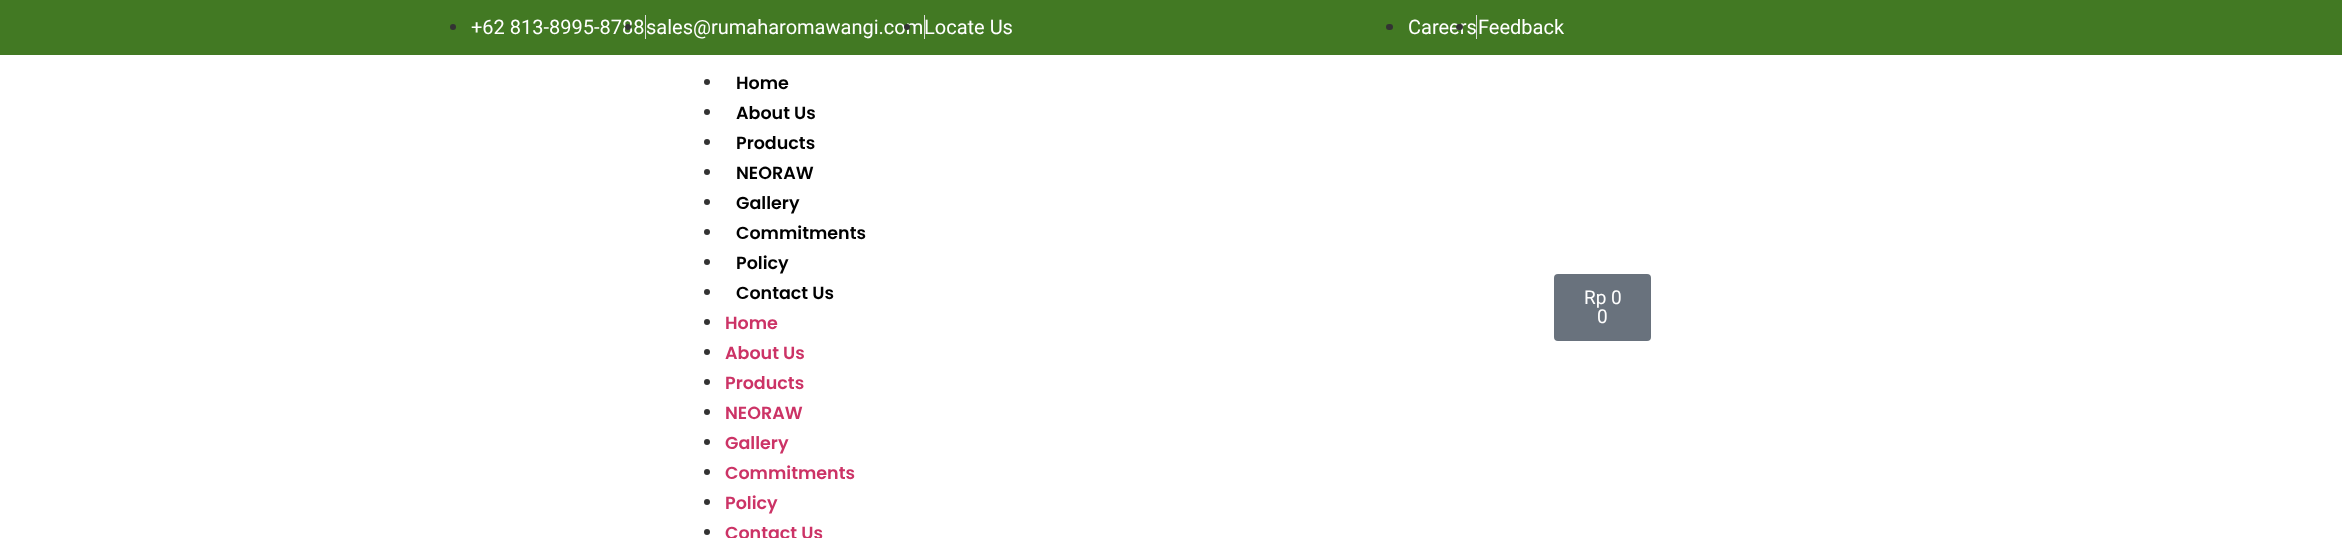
<svg xmlns="http://www.w3.org/2000/svg" width="2342" height="538" viewBox="0 0 2342 538">
  <rect width="100%" height="100%" fill="rgb(255,255,255)"/>
  <rect x="0" y="0" width="2342" height="55" fill="rgb(66,121,35)"/>
  <circle cx="453" cy="27" r="3" fill="rgb(51,51,51)"/>
  <text x="471" y="34" font-family="Roboto" font-size="20" fill="rgb(255,255,255)">+62 813-8995-8788</text>
  <rect x="645" y="15" width="1" height="24" fill="rgb(221,221,221)"/>
  <circle cx="628" cy="27" r="3" fill="rgb(51,51,51)"/>
  <text x="646" y="34" font-family="Roboto" font-size="20" fill="rgb(255,255,255)">sales@rumaharomawangi.com</text>
  <rect x="924" y="15" width="1" height="24" fill="rgb(221,221,221)"/>
  <circle cx="907" cy="27" r="3" fill="rgb(51,51,51)"/>
  <text x="924" y="34" font-family="Roboto" font-size="20" fill="rgb(255,255,255)">Locate Us</text>
  <rect x="1386" y="24" width="7" height="6" rx="3" fill="rgb(51,51,51)"/>
  <text x="1408" y="34" font-family="Roboto" font-size="20" fill="rgb(255,255,255)">Careers</text>
  <rect x="1476" y="15" width="1" height="24" fill="rgb(221,221,221)"/>
  <rect x="1456" y="24" width="7" height="6" rx="3" fill="rgb(51,51,51)"/>
  <text x="1478" y="34" font-family="Roboto" font-size="20" fill="rgb(255,255,255)">Feedback</text>
  <circle cx="707" cy="82" r="3" fill="rgb(51,51,51)"/>
  <text x="736" y="89" font-family="Poppins" font-size="17.5" font-weight="600" fill="rgb(0,0,0)">Home</text>
  <circle cx="707" cy="112" r="3" fill="rgb(51,51,51)"/>
  <text x="736" y="119" font-family="Poppins" font-size="17.5" font-weight="600" fill="rgb(0,0,0)">About Us</text>
  <circle cx="707" cy="142" r="3" fill="rgb(51,51,51)"/>
  <text x="736" y="149" font-family="Poppins" font-size="17.5" font-weight="600" fill="rgb(0,0,0)">Products</text>
  <circle cx="707" cy="172" r="3" fill="rgb(51,51,51)"/>
  <text x="736" y="179" font-family="Poppins" font-size="17.5" font-weight="600" fill="rgb(0,0,0)">NEORAW</text>
  <circle cx="707" cy="202" r="3" fill="rgb(51,51,51)"/>
  <text x="736" y="209" font-family="Poppins" font-size="17.5" font-weight="600" fill="rgb(0,0,0)">Gallery</text>
  <circle cx="707" cy="232" r="3" fill="rgb(51,51,51)"/>
  <text x="736" y="239" font-family="Poppins" font-size="17.5" font-weight="600" fill="rgb(0,0,0)">Commitments</text>
  <circle cx="707" cy="262" r="3" fill="rgb(51,51,51)"/>
  <text x="736" y="269" font-family="Poppins" font-size="17.5" font-weight="600" fill="rgb(0,0,0)">Policy</text>
  <circle cx="707" cy="292" r="3" fill="rgb(51,51,51)"/>
  <text x="736" y="299" font-family="Poppins" font-size="17.5" font-weight="600" fill="rgb(0,0,0)">Contact Us</text>
  <circle cx="707" cy="322" r="3" fill="rgb(51,51,51)"/>
  <text x="725" y="329" font-family="Poppins" font-size="17.5" font-weight="600" fill="rgb(204,51,102)">Home</text>
  <circle cx="707" cy="352" r="3" fill="rgb(51,51,51)"/>
  <text x="725" y="359" font-family="Poppins" font-size="17.5" font-weight="600" fill="rgb(204,51,102)">About Us</text>
  <circle cx="707" cy="382" r="3" fill="rgb(51,51,51)"/>
  <text x="725" y="389" font-family="Poppins" font-size="17.5" font-weight="600" fill="rgb(204,51,102)">Products</text>
  <circle cx="707" cy="412" r="3" fill="rgb(51,51,51)"/>
  <text x="725" y="419" font-family="Poppins" font-size="17.5" font-weight="600" fill="rgb(204,51,102)">NEORAW</text>
  <circle cx="707" cy="442" r="3" fill="rgb(51,51,51)"/>
  <text x="725" y="449" font-family="Poppins" font-size="17.5" font-weight="600" fill="rgb(204,51,102)">Gallery</text>
  <circle cx="707" cy="472" r="3" fill="rgb(51,51,51)"/>
  <text x="725" y="479" font-family="Poppins" font-size="17.5" font-weight="600" fill="rgb(204,51,102)">Commitments</text>
  <circle cx="707" cy="502" r="3" fill="rgb(51,51,51)"/>
  <text x="725" y="509" font-family="Poppins" font-size="17.5" font-weight="600" fill="rgb(204,51,102)">Policy</text>
  <circle cx="707" cy="532" r="3" fill="rgb(51,51,51)"/>
  <text x="725" y="539" font-family="Poppins" font-size="17.5" font-weight="600" fill="rgb(204,51,102)">Contact Us</text>
  <rect x="1554" y="274" width="97" height="67" rx="4" fill="rgb(105,114,125)"/>
  <g font-family="Roboto" font-size="19" fill="rgb(255,255,255)">
    <text x="1584" y="304">Rp 0</text>
    <text x="1597" y="323">0</text>
  </g>
</svg>
